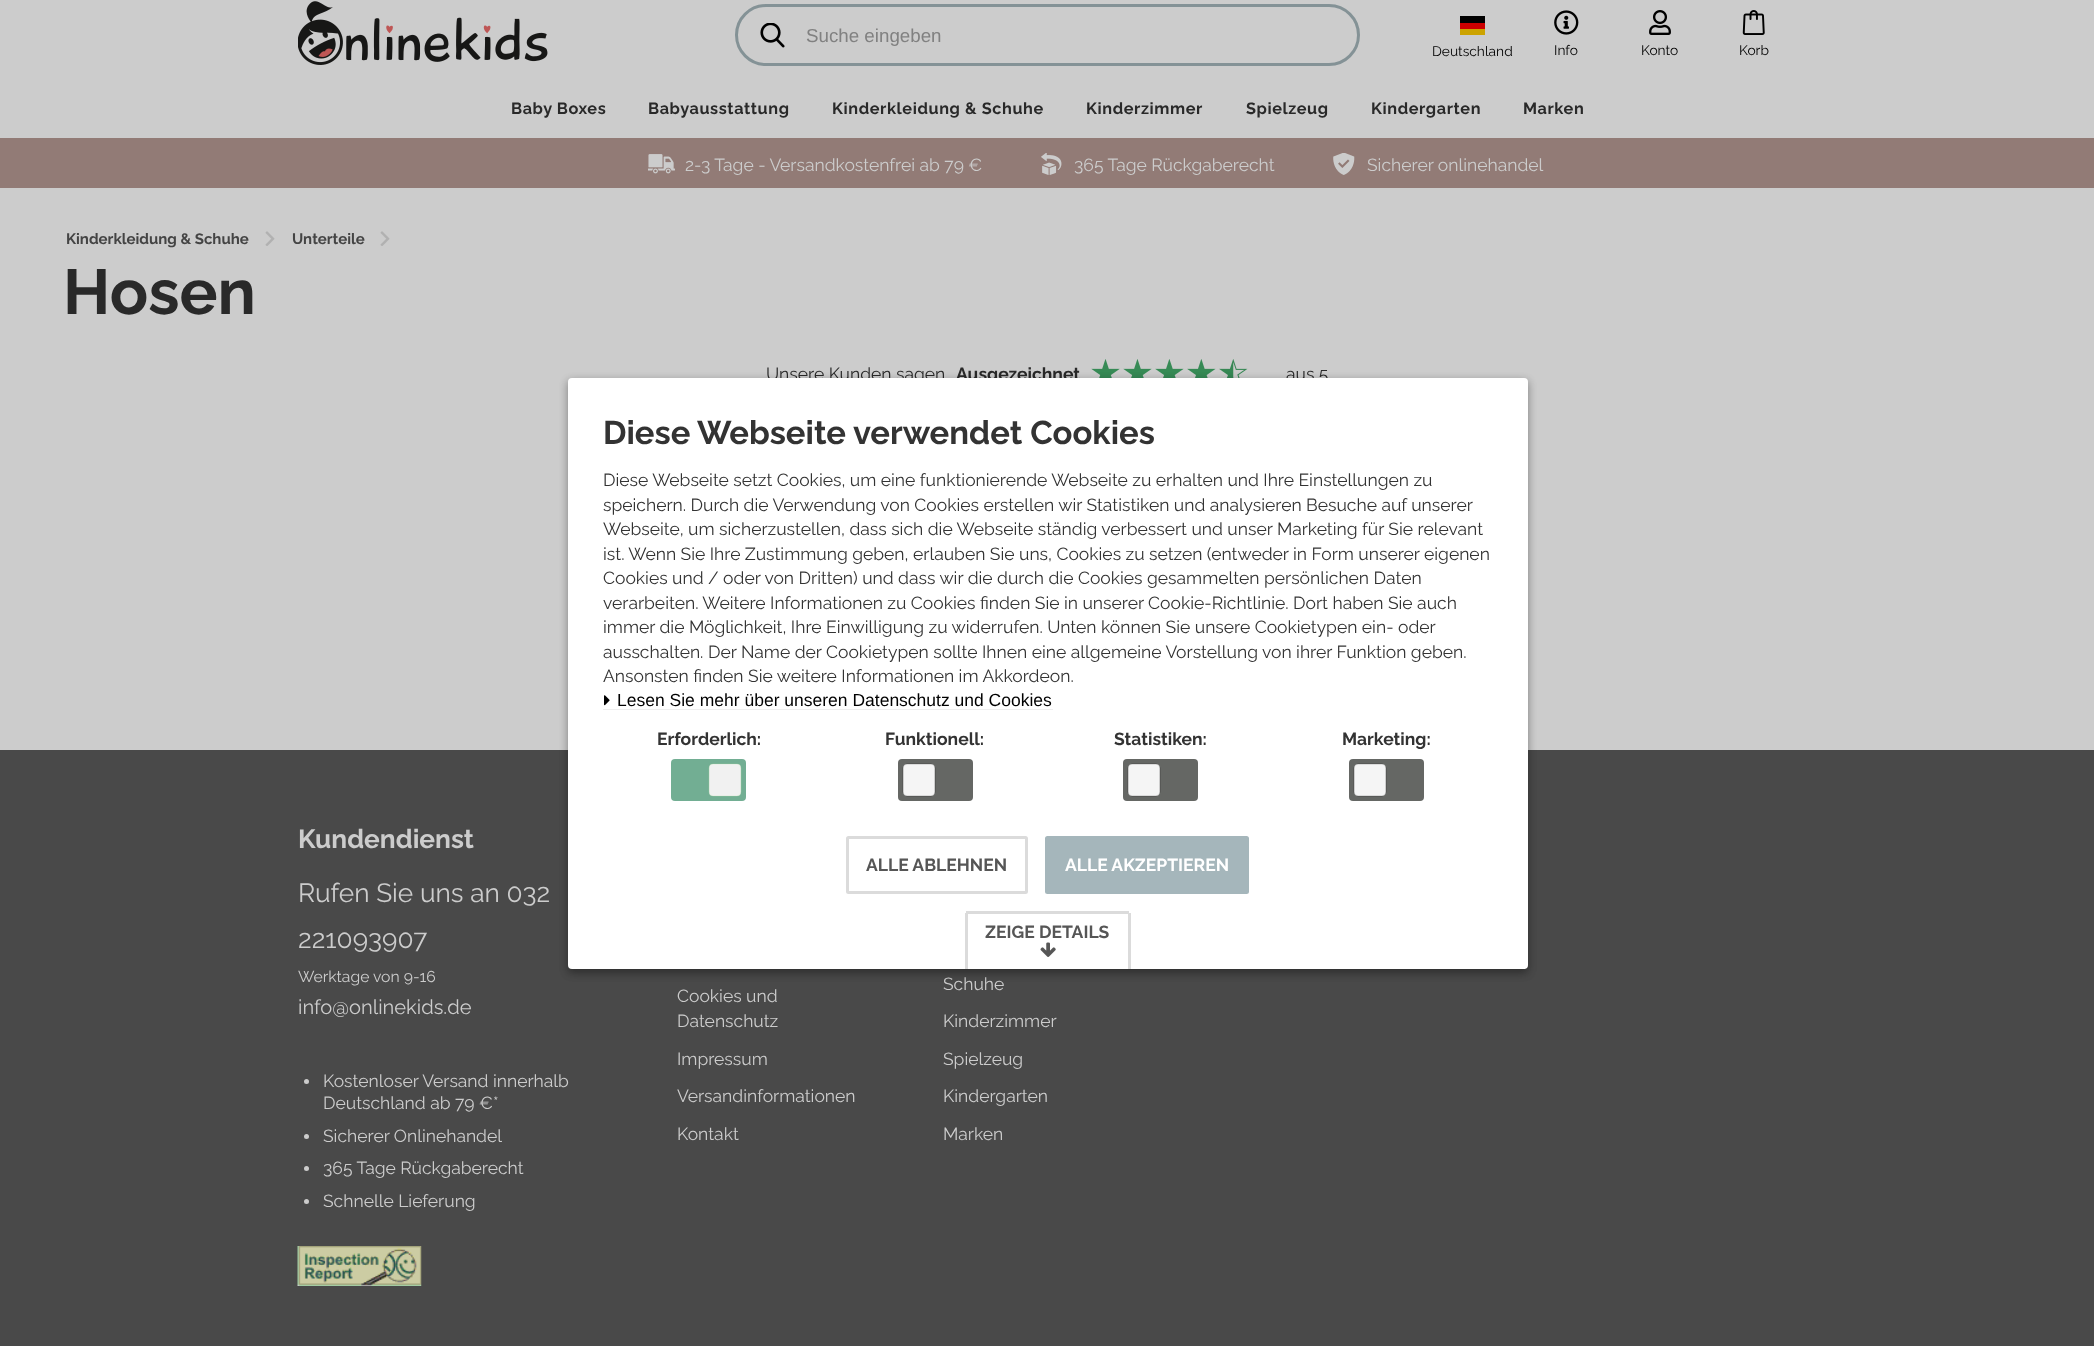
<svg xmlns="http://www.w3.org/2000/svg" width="2094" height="1346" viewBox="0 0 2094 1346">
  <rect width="100%" height="100%" fill="rgb(204,204,204)"/>
  <image x="298" y="1" width="250" height="64" href="pic1.png"/>
  <rect x="736.5" y="5.5" width="622" height="59" rx="29.5" fill="none" stroke="rgb(132,146,150)" stroke-width="3"/>
  <image x="760" y="23" width="25" height="25" href="pic2.png"/>
  <text x="806" y="42" font-family="Liberation Sans" font-size="18.75" fill="rgb(129,129,129)">Suche eingeben</text>
  <rect x="1460" y="29" width="25" height="6" fill="rgb(204,163,0)"/>
  <rect x="1460" y="16" width="25" height="7" fill="rgb(0,0,0)"/>
  <rect x="1460" y="23" width="25" height="6" fill="rgb(204,0,0)"/>
  <text x="1432" y="56" font-family="Raleway" font-size="13.75" fill="rgb(0,0,0)">Deutschland</text>
  <image x="1554" y="10" width="25" height="25" href="pic3.png"/>
  <text x="1554" y="55" font-family="Raleway" font-size="13.75" fill="rgb(0,0,0)">Info</text>
  <image x="1649" y="10" width="22" height="25" href="pic4.png"/>
  <text x="1641" y="55" font-family="Raleway" font-size="13.75" fill="rgb(0,0,0)">Konto</text>
  <image x="1742" y="10" width="23" height="25" href="pic5.png"/>
  <text x="1739" y="55" font-family="Raleway" font-size="13.75" fill="rgb(0,0,0)">Korb</text>
  <g font-family="Raleway" font-size="16.25" font-weight="bold" letter-spacing="0.6" fill="rgb(41,41,41)">
    <text x="511" y="114">Baby Boxes</text>
    <text x="648" y="114">Babyausstattung</text>
    <text x="832" y="114">Kinderkleidung &amp; Schuhe</text>
    <text x="1086" y="114">Kinderzimmer</text>
    <text x="1246" y="114">Spielzeug</text>
    <text x="1371" y="114">Kindergarten</text>
    <text x="1523" y="114">Marken</text>
  </g>
  <rect x="0" y="138" width="2094" height="50" fill="rgb(146,123,118)"/>
  <image x="648" y="154" width="27" height="20" href="pic6.png"/>
  <text x="685" y="171" font-family="Raleway" font-size="17.5" fill="rgb(204,204,204)">2-3 Tage - Versandkostenfrei ab 79 €</text>
  <image x="1041" y="153" width="21" height="22" href="pic7.png"/>
  <text x="1074" y="171" font-family="Raleway" font-size="17.5" fill="rgb(204,204,204)">365 Tage Rückgaberecht</text>
  <image x="1333" y="153" width="22" height="22" href="pic8.png"/>
  <text x="1367" y="171" font-family="Raleway" font-size="17.5" fill="rgb(204,204,204)">Sicherer onlinehandel</text>
  <text x="66" y="244" font-family="Raleway" font-size="15" font-weight="bold" fill="rgb(68,68,68)">Kinderkleidung &amp; Schuhe</text>
  <image x="265" y="231" width="10" height="15" href="pic9.png"/>
  <text x="292" y="244" font-family="Raleway" font-size="15" font-weight="bold" fill="rgb(68,68,68)">Unterteile</text>
  <image x="380" y="231" width="10" height="15" href="pic9.png"/>
  <text x="63" y="314" font-family="Raleway" font-size="63.5" font-weight="bold" fill="rgb(41,41,41)">Hosen</text>
  <text x="766" y="380" font-family="Raleway" font-size="17.5" fill="rgb(41,41,41)">Unsere Kunden sagen</text>
  <text x="956" y="380" font-family="Raleway" font-size="17.5" font-weight="bold" fill="rgb(41,41,41)">Ausgezeichnet</text>
  <image x="1091" y="359" width="157" height="19" href="pic10.png"/>
  <text x="1286" y="380" font-family="Raleway" font-size="17.5" fill="rgb(41,41,41)">aus 5</text>
  <rect x="0" y="750" width="2094" height="596" fill="rgb(73,73,73)"/>
  <text x="298" y="848" font-family="Raleway" font-size="26.25" font-weight="bold" fill="rgb(204,204,204)">Kundendienst</text>
  <g font-family="Raleway" font-size="26.25" fill="rgb(204,204,204)">
    <text>
      <tspan x="298" y="902">Rufen Sie uns an 032</tspan>
      <tspan x="298" y="948">221093907</tspan>
    </text>
  </g>
  <text x="298" y="982" font-family="Raleway" font-size="15.75" fill="rgb(204,204,204)">Werktage von 9-16</text>
  <text x="298" y="1014" font-family="Raleway" font-size="20.1" fill="rgb(204,204,204)">info@onlinekids.de</text>
  <circle cx="306.5" cy="1081.5" r="2.5" fill="rgb(204,204,204)"/>
  <g font-family="Raleway" font-size="17.5" fill="rgb(204,204,204)">
    <text>
      <tspan x="323" y="1087">Kostenloser Versand innerhalb</tspan>
      <tspan x="323" y="1109">Deutschland ab 79 €*</tspan>
    </text>
  </g>
  <circle cx="306.5" cy="1136.5" r="2.5" fill="rgb(204,204,204)"/>
  <text x="323" y="1142" font-family="Raleway" font-size="17.5" fill="rgb(204,204,204)">Sicherer Onlinehandel</text>
  <circle cx="306.5" cy="1168.5" r="2.5" fill="rgb(204,204,204)"/>
  <text x="323" y="1174" font-family="Raleway" font-size="17.5" fill="rgb(204,204,204)">365 Tage Rückgaberecht</text>
  <circle cx="306.5" cy="1201.5" r="2.5" fill="rgb(204,204,204)"/>
  <text x="323" y="1207" font-family="Raleway" font-size="17.5" fill="rgb(204,204,204)">Schnelle Lieferung</text>
  <image x="297" y="1246" width="125" height="40" href="pic11.png"/>
  <g font-family="Raleway" font-size="17.5" fill="rgb(204,204,204)">
    <text>
      <tspan x="677" y="1002">Cookies und</tspan>
      <tspan x="677" y="1027">Datenschutz</tspan>
    </text>
    <text x="677" y="1065">Impressum</text>
    <text x="677" y="1102">Versandinformationen</text>
    <text x="677" y="1140">Kontakt</text>
    <text x="943" y="990">Schuhe</text>
    <text x="943" y="1027">Kinderzimmer</text>
    <text x="943" y="1065">Spielzeug</text>
    <text x="943" y="1102">Kindergarten</text>
    <text x="943" y="1140">Marken</text>
  </g>
  <rect x="568" y="381" width="960" height="592" rx="4" fill="rgba(0,0,0,0.23)" filter="blur(4px)"/>
  <rect x="568" y="381" width="960" height="592" rx="4" fill="rgba(0,0,0,0.16)" filter="blur(4px)"/>
  <rect x="568" y="378" width="960" height="591" rx="4" fill="rgb(255,255,255)"/>
  <text x="603" y="444" font-family="Raleway" font-size="32.8" font-weight="bold" fill="rgb(51,51,51)">Diese Webseite verwendet Cookies</text>
  <g font-family="Raleway" font-size="17.5" fill="rgb(51,51,51)">
    <text>
      <tspan x="603" y="486">Diese Webseite setzt Cookies, um eine funktionierende Webseite zu erhalten und Ihre Einstellungen zu</tspan>
      <tspan x="603" y="511">speichern. Durch die Verwendung von Cookies erstellen wir Statistiken und analysieren Besuche auf unserer</tspan>
      <tspan x="603" y="535">Webseite, um sicherzustellen, dass sich die Webseite ständig verbessert und unser Marketing für Sie relevant</tspan>
      <tspan x="603" y="560">ist. Wenn Sie Ihre Zustimmung geben, erlauben Sie uns, Cookies zu setzen (entweder in Form unserer eigenen</tspan>
      <tspan x="603" y="584">Cookies und / oder von Dritten) und dass wir die durch die Cookies gesammelten persönlichen Daten</tspan>
      <tspan x="603" y="609">verarbeiten. Weitere Informationen zu Cookies finden Sie in unserer Cookie-Richtlinie. Dort haben Sie auch</tspan>
      <tspan x="603" y="633">immer die Möglichkeit, Ihre Einwilligung zu widerrufen. Unten können Sie unsere Cookietypen ein- oder</tspan>
      <tspan x="603" y="658">ausschalten. Der Name der Cookietypen sollte Ihnen eine allgemeine Vorstellung von ihrer Funktion geben.</tspan>
      <tspan x="603" y="682">Ansonsten finden Sie weitere Informationen im Akkordeon.</tspan>
    </text>
  </g>
  <rect x="603" y="709" width="450" height="1" fill="rgb(238,238,238)"/>
  <image x="604" y="695" width="6" height="11" href="pic12.png"/>
  <text x="617" y="706" font-family="Liberation Sans" font-size="17.5" fill="rgb(0,0,0)">Lesen Sie mehr über unseren Datenschutz und Cookies</text>
  <text x="657" y="745" font-family="Raleway" font-size="17.5" font-weight="bold" fill="rgb(51,51,51)">Erforderlich:</text>
  <rect x="671" y="759" width="75" height="42" rx="4" fill="rgb(114,174,147)"/>
  <rect x="709.1" y="764.1" width="31.8" height="31.8" rx="3.9" fill="none" stroke="rgb(179,222,165)" stroke-width="0.2"/>
  <rect x="709.1" y="764.1" width="31.8" height="31.8" rx="3.9" fill="rgb(241,241,241)" stroke="rgb(179,222,165)" stroke-width="0.2"/>
  <text x="885" y="745" font-family="Raleway" font-size="17.5" font-weight="bold" fill="rgb(51,51,51)">Funktionell:</text>
  <rect x="898" y="759" width="75" height="42" rx="4" fill="rgb(101,103,100)"/>
  <rect x="903.1" y="764.1" width="31.8" height="31.8" rx="3.9" fill="none" stroke="rgb(25,25,25)" stroke-width="0.2"/>
  <rect x="903.1" y="764.1" width="31.8" height="31.8" rx="3.9" fill="rgb(245,245,245)" stroke="rgb(25,25,25)" stroke-width="0.2"/>
  <text x="1114" y="745" font-family="Raleway" font-size="17.5" font-weight="bold" fill="rgb(51,51,51)">Statistiken:</text>
  <rect x="1123" y="759" width="75" height="42" rx="4" fill="rgb(101,103,100)"/>
  <rect x="1128.1" y="764.1" width="31.8" height="31.8" rx="3.9" fill="none" stroke="rgb(25,25,25)" stroke-width="0.2"/>
  <rect x="1128.1" y="764.1" width="31.8" height="31.8" rx="3.9" fill="rgb(245,245,245)" stroke="rgb(25,25,25)" stroke-width="0.2"/>
  <text x="1342" y="745" font-family="Raleway" font-size="17.5" font-weight="bold" fill="rgb(51,51,51)">Marketing:</text>
  <rect x="1349" y="759" width="75" height="42" rx="4" fill="rgb(101,103,100)"/>
  <rect x="1354.1" y="764.1" width="31.8" height="31.8" rx="3.9" fill="none" stroke="rgb(25,25,25)" stroke-width="0.2"/>
  <rect x="1354.1" y="764.1" width="31.8" height="31.8" rx="3.9" fill="rgb(245,245,245)" stroke="rgb(25,25,25)" stroke-width="0.2"/>
  <rect x="847.5" y="837.5" width="179" height="55" rx="1" fill="none" stroke="rgb(219,219,219)" stroke-width="3"/>
  <text x="866" y="871" font-family="Raleway" font-size="17.5" font-weight="bold" fill="rgb(86,86,86)">ALLE ABLEHNEN</text>
  <rect x="1046.5" y="837.5" width="201" height="55" rx="1" fill="rgb(165,182,187)" stroke="rgb(165,182,187)" stroke-width="3"/>
  <text x="1065" y="871" font-family="Raleway" font-size="17.5" font-weight="bold" fill="rgb(255,255,255)">ALLE AKZEPTIEREN</text>
  <rect x="966" y="911" width="163" height="3" fill="rgb(219,219,219)"/>
  <rect x="1128" y="913" width="3" height="56" fill="rgb(219,219,219)"/>
  <rect x="965" y="913" width="3" height="56" fill="rgb(219,219,219)"/>
  <text x="985" y="938" font-family="Raleway" font-size="17.5" font-weight="bold" fill="rgb(86,86,86)">ZEIGE DETAILS</text>
  <image x="1040" y="942" width="16" height="15" href="pic13.png"/>
</svg>
